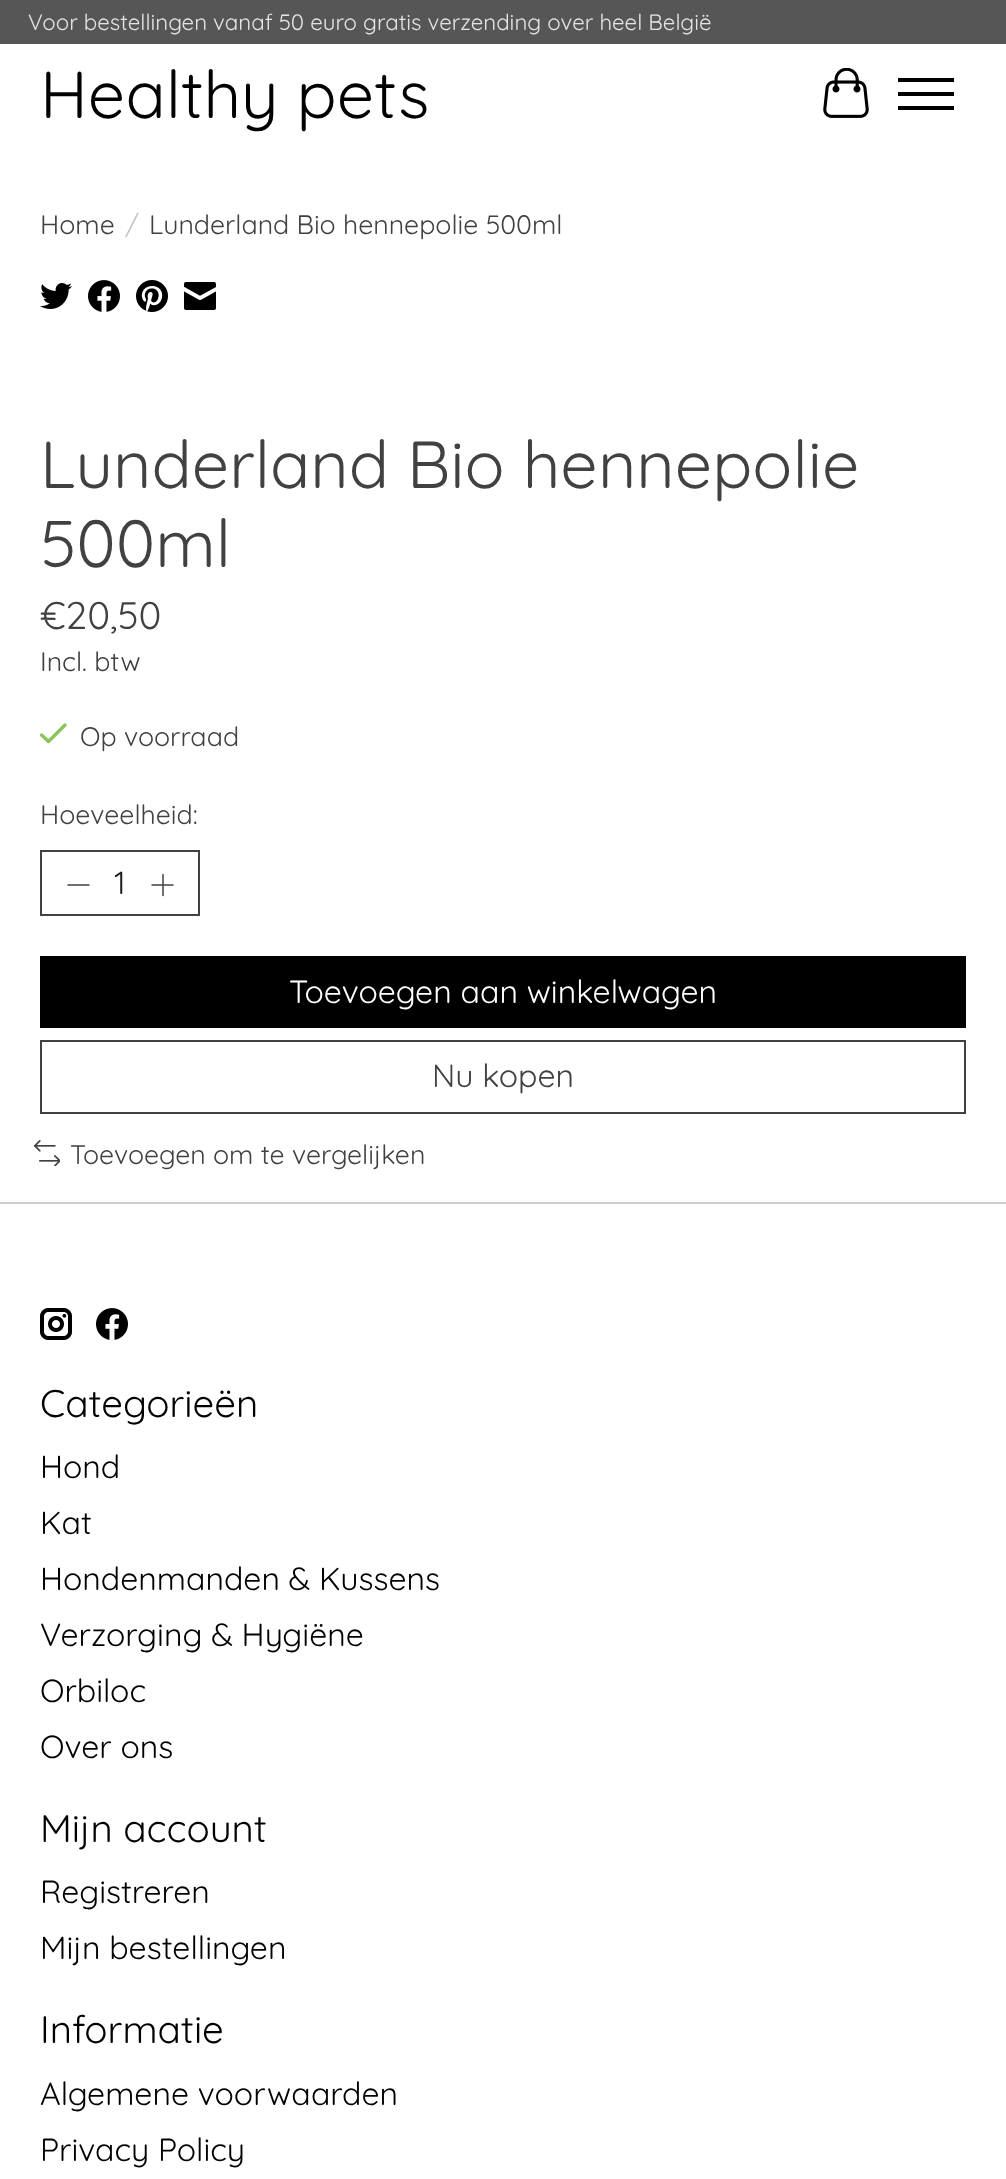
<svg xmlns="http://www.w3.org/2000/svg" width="1006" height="2179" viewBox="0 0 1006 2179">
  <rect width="100%" height="100%" fill="rgb(255,255,255)"/>
  <rect x="0" y="0" width="1006" height="44" fill="rgb(86,86,86)"/>
  <text x="28" y="30" font-family="Quicksand" font-size="22.25" fill="rgb(228,228,228)">Voor bestellingen vanaf 50 euro gratis verzending over heel België</text>
  <text x="40" y="118" font-family="Quicksand" font-size="66.4" fill="rgb(0,0,0)">Healthy pets</text>
  <image x="823" y="68" width="46" height="50" href="pic1.png"/>
  <rect x="898" y="92" width="56" height="4" fill="rgb(0,0,0)"/>
  <rect x="898" y="78" width="56" height="4" fill="rgb(0,0,0)"/>
  <rect x="898" y="106" width="56" height="4" fill="rgb(0,0,0)"/>
  <text x="40" y="234" font-family="Quicksand" font-size="26.7" fill="rgb(65,65,65)">Home</text>
  <text x="125" y="234" font-family="Quicksand" font-size="26.7" fill="rgb(198,198,198)">/</text>
  <text x="149" y="234" font-family="Quicksand" font-size="26.7" fill="rgb(65,65,65)">Lunderland Bio hennepolie 500ml</text>
  <image x="40" y="283" width="32" height="26" href="pic2.png"/>
  <image x="88" y="280" width="32" height="32" href="pic3.png"/>
  <image x="136" y="280" width="32" height="32" href="pic4.png"/>
  <image x="184" y="282" width="32" height="28" href="pic5.png"/>
  <g font-family="Quicksand" font-size="66.4" fill="rgb(65,65,65)">
    <text>
      <tspan x="40" y="488">Lunderland Bio hennepolie</tspan>
      <tspan x="40" y="567">500ml</tspan>
    </text>
  </g>
  <text x="40" y="629" font-family="Quicksand" font-size="38.5" fill="rgb(65,65,65)">€20,50</text>
  <text x="40" y="671" font-family="Quicksand" font-size="26.7" fill="rgb(65,65,65)">Incl. btw</text>
  <path d="M41.5 735L48.5 741.5L65 725" fill="none" stroke="rgb(136,197,89)" stroke-width="3.3" stroke-linecap="round" stroke-linejoin="round"/>
  <g font-family="Quicksand" font-size="26.7" fill="rgb(65,65,65)">
    <text x="80" y="746">Op voorraad</text>
    <text x="40" y="824">Hoeveelheid:</text>
  </g>
  <rect x="41" y="851" width="158" height="64" fill="none" stroke="rgb(65,65,65)" stroke-width="2"/>
  <path d="M68 885H89" fill="none" stroke="rgb(65,65,65)" stroke-width="1.5" stroke-linecap="round" stroke-linejoin="round"/>
  <text x="114" y="894" font-family="Quicksand" font-size="32" fill="rgb(28,28,33)">1</text>
  <path d="M163 874.5V895.5M152 885H173" fill="none" stroke="rgb(65,65,65)" stroke-width="1.5" stroke-linecap="round" stroke-linejoin="round"/>
  <rect x="40" y="956" width="926" height="72" fill="rgb(0,0,0)"/>
  <text x="289" y="1003" font-family="Quicksand" font-size="32" fill="rgb(255,255,255)">Toevoegen aan winkelwagen</text>
  <rect x="41" y="1041" width="924" height="72" fill="none" stroke="rgb(65,65,65)" stroke-width="2"/>
  <text x="432" y="1087" font-family="Quicksand" font-size="32" fill="rgb(65,65,65)">Nu kopen</text>
  <image x="34" y="1140" width="26" height="26" href="pic6.png"/>
  <text x="70" y="1164" font-family="Quicksand" font-size="26.7" fill="rgb(65,65,65)">Toevoegen om te vergelijken</text>
  <rect x="0" y="1202" width="1006" height="2" fill="rgb(204,204,204)"/>
  <image x="40" y="1308" width="32" height="32" href="pic7.png"/>
  <image x="96" y="1308" width="32" height="32" href="pic3.png"/>
  <text x="40" y="1417" font-family="Quicksand" font-size="38.5" fill="rgb(0,0,0)">Categorieën</text>
  <g font-family="Quicksand" font-size="32" fill="rgb(0,0,0)">
    <text>
      <tspan x="40" y="1478">Hond</tspan>
      <tspan x="40" y="1534">Kat</tspan>
      <tspan x="40" y="1590">Hondenmanden &amp; Kussens</tspan>
      <tspan x="40" y="1646">Verzorging &amp; Hygiëne</tspan>
      <tspan x="40" y="1702">Orbiloc</tspan>
      <tspan x="40" y="1758">Over ons</tspan>
    </text>
  </g>
  <text x="40" y="1842" font-family="Quicksand" font-size="38.5" fill="rgb(0,0,0)">Mijn account</text>
  <g font-family="Quicksand" font-size="32" fill="rgb(0,0,0)">
    <text>
      <tspan x="40" y="1903">Registreren</tspan>
      <tspan x="40" y="1959">Mijn bestellingen</tspan>
    </text>
  </g>
  <text x="40" y="2043" font-family="Quicksand" font-size="38.5" fill="rgb(0,0,0)">Informatie</text>
  <g font-family="Quicksand" font-size="32" fill="rgb(0,0,0)">
    <text>
      <tspan x="40" y="2105">Algemene voorwaarden</tspan>
      <tspan x="40" y="2161">Privacy Policy</tspan>
    </text>
  </g>
</svg>
